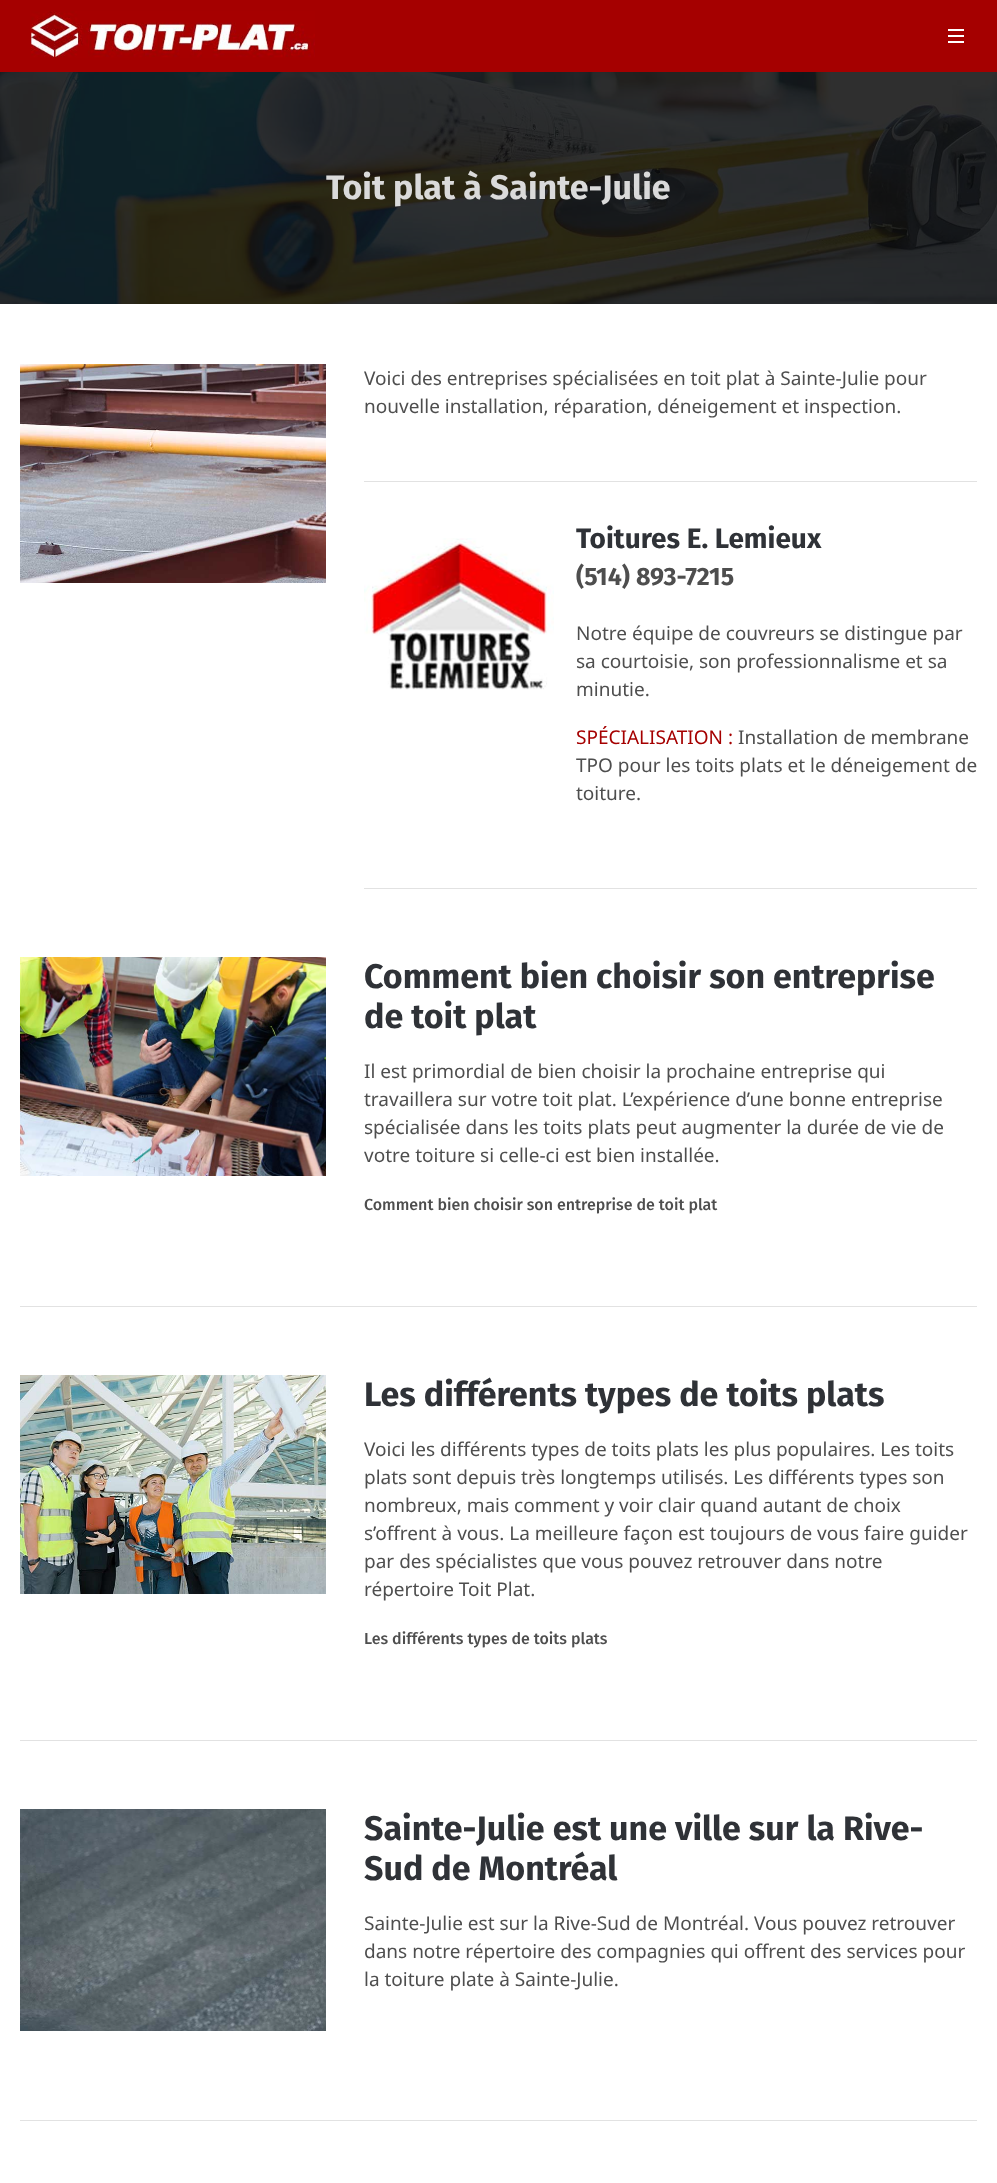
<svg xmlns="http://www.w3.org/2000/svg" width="997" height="2183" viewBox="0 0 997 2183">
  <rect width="100%" height="100%" fill="rgb(255,255,255)"/>
  <rect x="0" y="0" width="997" height="72" fill="rgb(165,0,0)"/>
  <image x="30" y="11" width="285" height="47" href="pic1.png"/>
  <rect x="948" y="35" width="16" height="2" fill="rgb(255,255,255)"/>
  <rect x="948" y="29" width="16" height="2" fill="rgb(255,255,255)"/>
  <rect x="948" y="41" width="16" height="2" fill="rgb(255,255,255)"/>
  <image x="0" y="72" width="997" height="232" href="pic2.png"/>
  <text x="326" y="199" font-family="Fira Sans" font-size="34" font-weight="bold" fill="rgb(218,218,218)">Toit plat à Sainte-Julie</text>
  <image x="20" y="364" width="306" height="219" href="pic3.png"/>
  <g font-family="Noto Sans" font-size="19" fill="rgb(78,78,78)">
    <text>
      <tspan x="364" y="385">Voici des entreprises spécialisées en toit plat à Sainte-Julie pour</tspan>
      <tspan x="364" y="413">nouvelle installation, réparation, déneigement et inspection.</tspan>
    </text>
  </g>
  <rect x="364" y="481" width="613" height="1" fill="rgb(226,226,226)"/>
  <image x="364" y="538" width="190" height="152" href="pic4.png"/>
  <text x="576" y="548" font-family="Fira Sans" font-size="28" font-weight="bold" fill="rgb(47,50,55)">Toitures E. Lemieux</text>
  <text x="576" y="585" font-family="Fira Sans" font-size="25" font-weight="bold" fill="rgb(78,78,78)">(514) 893-7215</text>
  <g font-family="Noto Sans" font-size="19" fill="rgb(78,78,78)">
    <text>
      <tspan x="576" y="640">Notre équipe de couvreurs se distingue par</tspan>
      <tspan x="576" y="668">sa courtoisie, son professionnalisme et sa</tspan>
      <tspan x="576" y="696">minutie.</tspan>
    </text>
  </g>
  <text x="576" y="744" font-family="Noto Sans" font-size="19" fill="rgb(165,0,0)">SPÉCIALISATION :</text>
  <g font-family="Noto Sans" font-size="19" fill="rgb(78,78,78)">
    <text x="738" y="744">Installation de membrane</text>
    <text>
      <tspan x="576" y="772">TPO pour les toits plats et le déneigement de</tspan>
      <tspan x="576" y="800">toiture.</tspan>
    </text>
  </g>
  <rect x="364" y="888" width="613" height="1" fill="rgb(226,226,226)"/>
  <image x="20" y="957" width="306" height="219" href="pic5.png"/>
  <g font-family="Fira Sans" font-size="34" font-weight="bold" fill="rgb(47,50,55)">
    <text>
      <tspan x="364" y="988">Comment bien choisir son entreprise</tspan>
      <tspan x="364" y="1028">de toit plat</tspan>
    </text>
  </g>
  <g font-family="Noto Sans" font-size="19" fill="rgb(78,78,78)">
    <text>
      <tspan x="364" y="1078">Il est primordial de bien choisir la prochaine entreprise qui</tspan>
      <tspan x="364" y="1106">travaillera sur votre toit plat. L’expérience d’une bonne entreprise</tspan>
      <tspan x="364" y="1134">spécialisée dans les toits plats peut augmenter la durée de vie de</tspan>
      <tspan x="364" y="1162">votre toiture si celle-ci est bien installée.</tspan>
    </text>
  </g>
  <text x="364" y="1210" font-family="Fira Sans" font-size="16" font-weight="500" fill="rgb(78,78,78)">Comment bien choisir son entreprise de toit plat</text>
  <rect x="20" y="1306" width="957" height="1" fill="rgb(226,226,226)"/>
  <image x="20" y="1375" width="306" height="219" href="pic6.png"/>
  <text x="364" y="1406" font-family="Fira Sans" font-size="34" font-weight="bold" fill="rgb(47,50,55)">Les différents types de toits plats</text>
  <g font-family="Noto Sans" font-size="19" fill="rgb(78,78,78)">
    <text>
      <tspan x="364" y="1456">Voici les différents types de toits plats les plus populaires. Les toits</tspan>
      <tspan x="364" y="1484">plats sont depuis très longtemps utilisés. Les différents types son</tspan>
      <tspan x="364" y="1512">nombreux, mais comment y voir clair quand autant de choix</tspan>
      <tspan x="364" y="1540">s’offrent à vous. La meilleure façon est toujours de vous faire guider</tspan>
      <tspan x="364" y="1568">par des spécialistes que vous pouvez retrouver dans notre</tspan>
      <tspan x="364" y="1596">répertoire Toit Plat.</tspan>
    </text>
  </g>
  <text x="364" y="1644" font-family="Fira Sans" font-size="16" font-weight="500" fill="rgb(78,78,78)">Les différents types de toits plats</text>
  <rect x="20" y="1740" width="957" height="1" fill="rgb(226,226,226)"/>
  <image x="20" y="1809" width="306" height="222" href="pic7.png"/>
  <g font-family="Fira Sans" font-size="34" font-weight="bold" fill="rgb(47,50,55)">
    <text>
      <tspan x="364" y="1840">Sainte-Julie est une ville sur la Rive-</tspan>
      <tspan x="364" y="1880">Sud de Montréal</tspan>
    </text>
  </g>
  <g font-family="Noto Sans" font-size="19" fill="rgb(78,78,78)">
    <text>
      <tspan x="364" y="1930">Sainte-Julie est sur la Rive-Sud de Montréal. Vous pouvez retrouver</tspan>
      <tspan x="364" y="1958">dans notre répertoire des compagnies qui offrent des services pour</tspan>
      <tspan x="364" y="1986">la toiture plate à Sainte-Julie.</tspan>
    </text>
  </g>
  <rect x="20" y="2120" width="957" height="1" fill="rgb(226,226,226)"/>
</svg>
